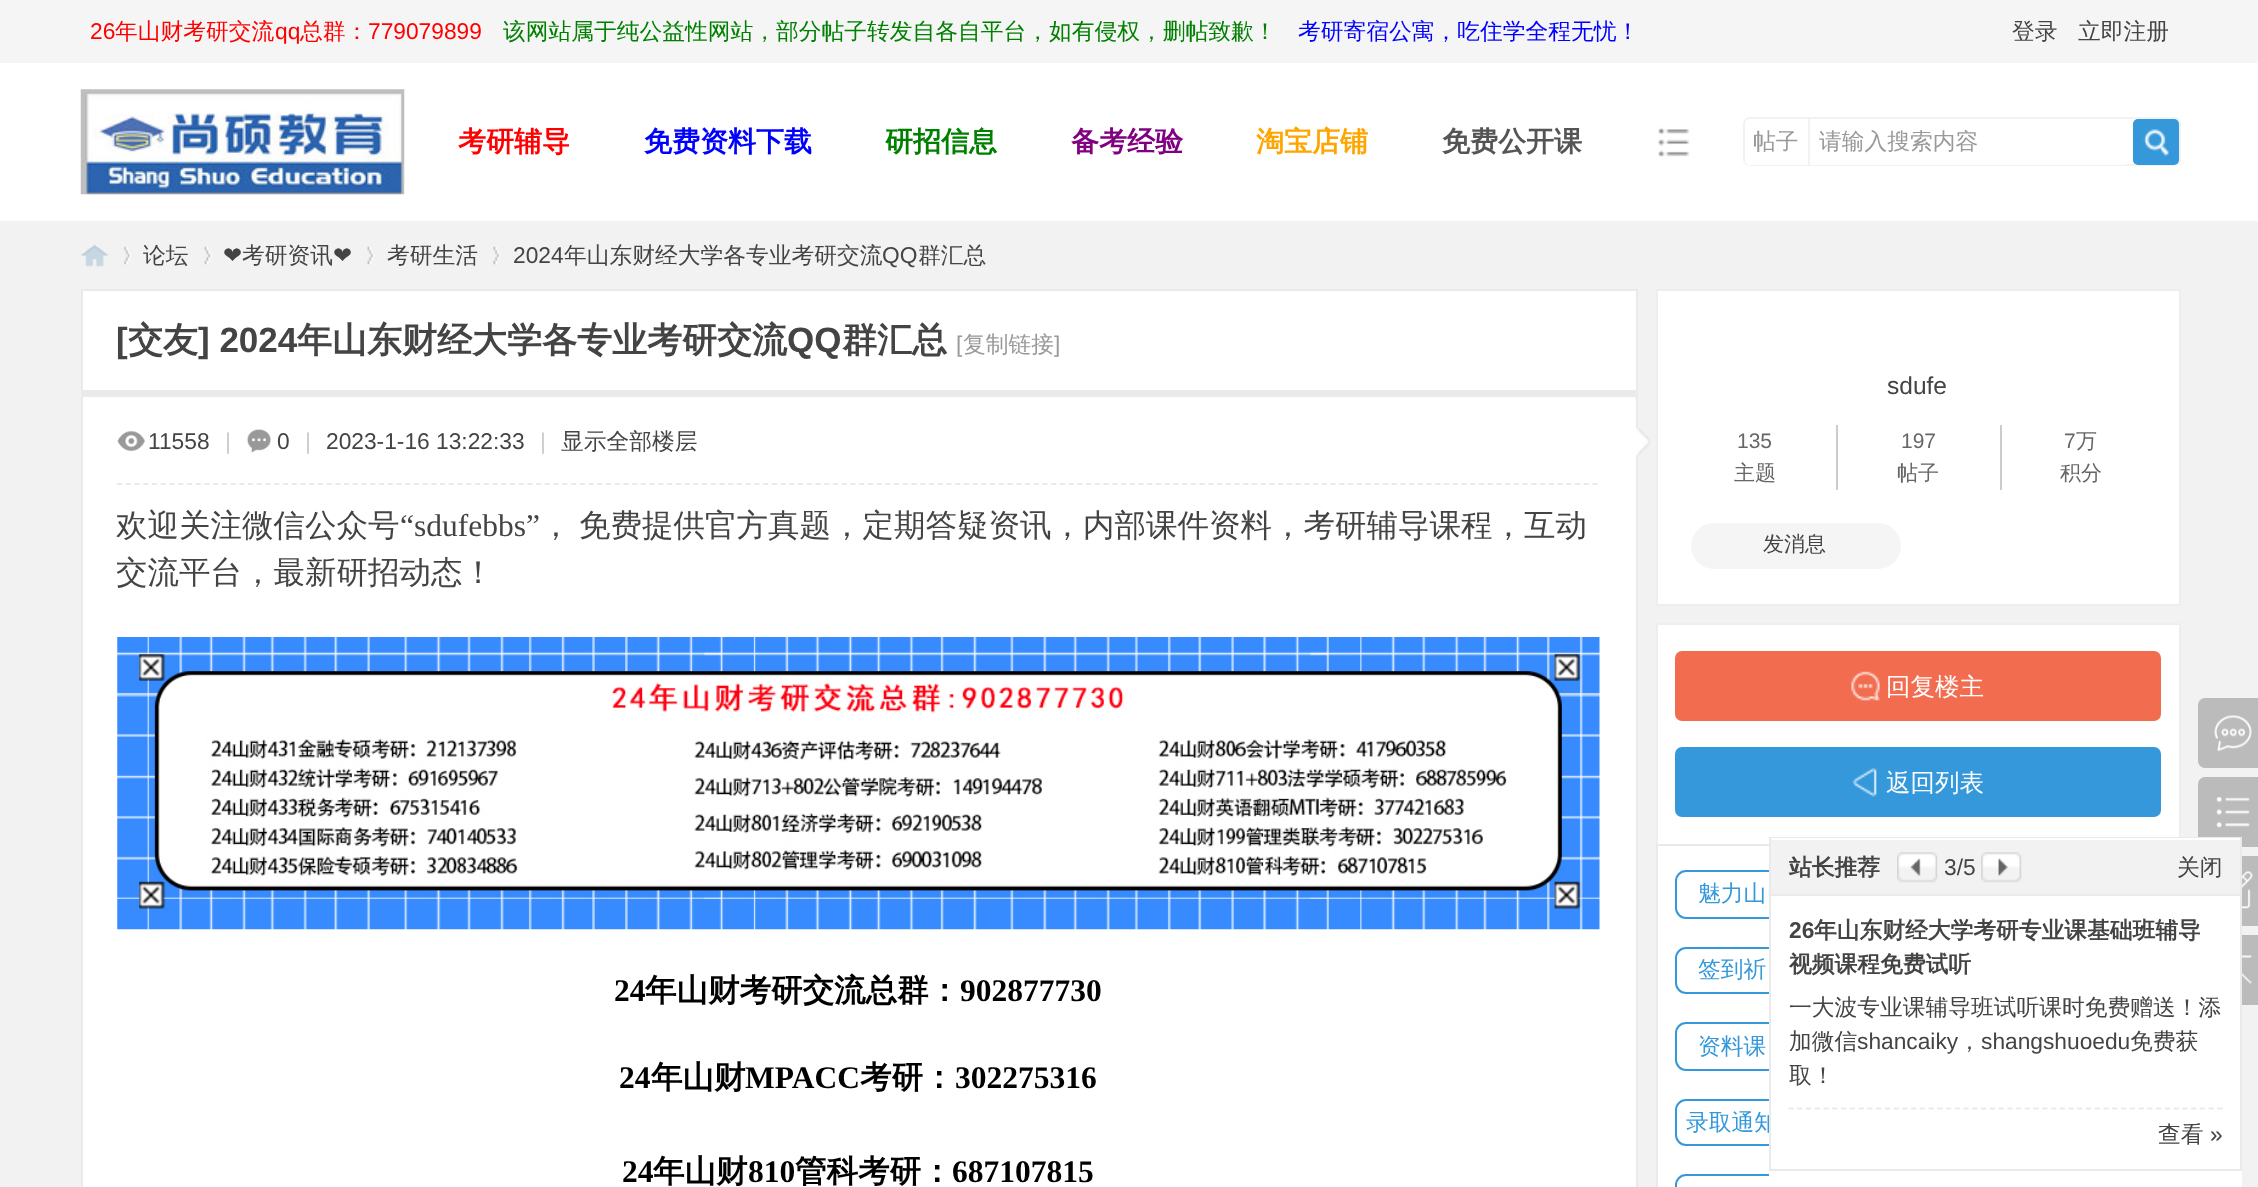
<svg xmlns="http://www.w3.org/2000/svg" width="2258" height="1187" viewBox="0 0 2258 1187">
  <rect width="100%" height="100%" fill="rgb(242,242,242)"/>
  <rect x="0" y="0" width="2258" height="63" fill="rgb(245,245,245)"/>
  <text x="90" y="39" font-family="Liberation Sans" font-size="22.75" fill="rgb(255,0,0)">26</text>
  <text x="115" y="39" font-family="WenQuanYi Zen Hei" font-size="22.75" font-weight="500" fill="rgb(255,0,0)">年山财考研交流</text>
  <text x="275" y="39" font-family="Liberation Sans" font-size="22.75" fill="rgb(255,0,0)">qq</text>
  <text x="300" y="39" font-family="WenQuanYi Zen Hei" font-size="22.75" font-weight="500" fill="rgb(255,0,0)">总群：</text>
  <text x="368" y="39" font-family="Liberation Sans" font-size="22.75" fill="rgb(255,0,0)">779079899</text>
  <text x="503" y="39" font-family="WenQuanYi Zen Hei" font-size="22.75" font-weight="500" fill="rgb(0,128,0)">该网站属于纯公益性网站，部分帖子转发自各自平台，如有侵权，删帖致歉！</text>
  <text x="1298" y="39" font-family="WenQuanYi Zen Hei" font-size="22.75" font-weight="500" fill="rgb(0,0,255)">考研寄宿公寓，吃住学全程无忧！</text>
  <g font-family="WenQuanYi Zen Hei" font-size="22.75" font-weight="500" fill="rgb(68,68,68)">
    <text x="2012" y="39">登录</text>
    <text x="2078" y="39">立即注册</text>
  </g>
  <rect x="0" y="63" width="2258" height="158" fill="rgb(255,255,255)"/>
  <image x="80" y="89" width="325" height="106" href="pic1.png"/>
  <text x="458" y="151" font-family="WenQuanYi Zen Hei" font-size="28" font-weight="bold" fill="rgb(255,0,0)">考研辅导</text>
  <text x="644" y="151" font-family="WenQuanYi Zen Hei" font-size="28" font-weight="bold" fill="rgb(0,0,255)">免费资料下载</text>
  <text x="885" y="151" font-family="WenQuanYi Zen Hei" font-size="28" font-weight="bold" fill="rgb(0,128,0)">研招信息</text>
  <text x="1071" y="151" font-family="WenQuanYi Zen Hei" font-size="28" font-weight="bold" fill="rgb(128,0,128)">备考经验</text>
  <text x="1256" y="151" font-family="WenQuanYi Zen Hei" font-size="28" font-weight="bold" fill="rgb(255,165,0)">淘宝店铺</text>
  <text x="1442" y="151" font-family="WenQuanYi Zen Hei" font-size="28" font-weight="bold" fill="rgb(85,85,85)">免费公开课</text>
  <image x="1658" y="127" width="32" height="30" href="pic2.png"/>
  <rect x="1744" y="118" width="436" height="47" rx="6" fill="none" stroke="rgb(242,242,242)" stroke-width="2"/>
  <path d="M1750 119H1810V165H1750C1747 165 1745 163 1745 160V124C1745 121 1747 119 1750 119Z" fill="rgb(255,255,255)"/>
  <rect x="1808" y="119" width="2" height="46" fill="rgb(242,242,242)"/>
  <text x="1753" y="149" font-family="WenQuanYi Zen Hei" font-size="22.75" font-weight="500" fill="rgb(153,153,153)">帖子</text>
  <rect x="1810" y="164" width="316" height="1" fill="rgb(255,255,255)"/>
  <text x="1819" y="149" font-family="WenQuanYi Zen Hei" font-size="22.75" font-weight="500" fill="rgb(153,153,153)">请输入搜索内容</text>
  <rect x="2133" y="119" width="46" height="46" rx="5" fill="rgb(52,152,219)"/>
  <image x="2143" y="129" width="26" height="28" href="pic3.png"/>
  <image x="80" y="244" width="29" height="23" href="pic4.png"/>
  <image x="124" y="246" width="7" height="19" href="pic5.png"/>
  <text x="143" y="263" font-family="WenQuanYi Zen Hei" font-size="22.75" font-weight="500" fill="rgb(68,68,68)">论坛</text>
  <image x="204" y="246" width="8" height="19" href="pic6.png"/>
  <text x="223" y="263" font-family="DejaVu Sans" font-size="22.75" fill="rgb(68,68,68)">❤</text>
  <text x="242" y="263" font-family="WenQuanYi Zen Hei" font-size="22.75" font-weight="500" fill="rgb(68,68,68)">考研资讯</text>
  <text x="333" y="263" font-family="DejaVu Sans" font-size="22.75" fill="rgb(68,68,68)">❤</text>
  <image x="367" y="246" width="8" height="19" href="pic7.png"/>
  <text x="387" y="263" font-family="WenQuanYi Zen Hei" font-size="22.75" font-weight="500" fill="rgb(68,68,68)">考研生活</text>
  <image x="493" y="246" width="8" height="19" href="pic8.png"/>
  <text x="513" y="263" font-family="Liberation Sans" font-size="22.75" fill="rgb(68,68,68)">2024</text>
  <text x="564" y="263" font-family="WenQuanYi Zen Hei" font-size="22.75" font-weight="500" fill="rgb(68,68,68)">年山东财经大学各专业考研交流</text>
  <text x="882" y="263" font-family="Liberation Sans" font-size="22.75" fill="rgb(68,68,68)">QQ</text>
  <text x="918" y="263" font-family="WenQuanYi Zen Hei" font-size="22.75" font-weight="500" fill="rgb(68,68,68)">群汇总</text>
  <rect x="82" y="290" width="1555" height="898" fill="rgb(255,255,255)" stroke="rgb(234,234,234)" stroke-width="2"/>
  <text x="116" y="352" font-family="Liberation Sans" font-size="35" font-weight="bold" fill="rgb(68,68,68)">[</text>
  <text x="128" y="352" font-family="WenQuanYi Zen Hei" font-size="35" font-weight="bold" fill="rgb(68,68,68)">交友</text>
  <text x="198" y="352" font-family="Liberation Sans" font-size="35" font-weight="bold" fill="rgb(68,68,68)">] 2024</text>
  <text x="297" y="352" font-family="WenQuanYi Zen Hei" font-size="35" font-weight="bold" fill="rgb(68,68,68)">年山东财经大学各专业考研交流</text>
  <text x="787" y="352" font-family="Liberation Sans" font-size="35" font-weight="bold" fill="rgb(68,68,68)">QQ</text>
  <text x="842" y="352" font-family="WenQuanYi Zen Hei" font-size="35" font-weight="bold" fill="rgb(68,68,68)">群汇总</text>
  <text x="956" y="352" font-family="Liberation Sans" font-size="22.75" fill="rgb(153,153,153)">[</text>
  <text x="963" y="352" font-family="WenQuanYi Zen Hei" font-size="22.75" font-weight="500" fill="rgb(153,153,153)">复制链接</text>
  <text x="1054" y="352" font-family="Liberation Sans" font-size="22.75" fill="rgb(153,153,153)">]</text>
  <rect x="1635" y="390" width="2" height="9" fill="rgb(238,238,238)"/>
  <rect x="82" y="390" width="1553" height="7" fill="rgb(234,234,234)"/>
  <path d="M117 484H1599.5" fill="none" stroke="rgb(234,234,234)" stroke-width="1.8" stroke-dasharray="5.25 3.48"/>
  <image x="117" y="431" width="29" height="20" href="pic9.png"/>
  <text x="148" y="449" font-family="Liberation Sans" font-size="22.75" fill="rgb(68,68,68)">11558</text>
  <image x="1636" y="428" width="14" height="27" href="pic10.png"/>
  <text x="225" y="449" font-family="Liberation Sans" font-size="22.75" fill="rgb(204,204,204)">|</text>
  <image x="247" y="429" width="24" height="24" href="pic11.png"/>
  <text x="277" y="449" font-family="Liberation Sans" font-size="22.75" fill="rgb(68,68,68)">0</text>
  <text x="305" y="449" font-family="Liberation Sans" font-size="22.75" fill="rgb(204,204,204)">|</text>
  <text x="326" y="449" font-family="Liberation Sans" font-size="22.75" fill="rgb(68,68,68)">2023-1-16 13:22:33</text>
  <text x="540" y="449" font-family="Liberation Sans" font-size="22.75" fill="rgb(204,204,204)">|</text>
  <text x="561" y="449" font-family="WenQuanYi Zen Hei" font-size="22.75" font-weight="500" fill="rgb(68,68,68)">显示全部楼层</text>
  <text x="116" y="536" font-family="WenQuanYi Zen Hei" font-size="31.5" font-weight="500" fill="rgb(68,68,68)">欢迎关注微信公众号</text>
  <text x="400" y="536" font-family="Liberation Serif" font-size="31.5" fill="rgb(68,68,68)">“sdufebbs”</text>
  <g font-family="WenQuanYi Zen Hei" font-size="31.5" font-weight="500" fill="rgb(68,68,68)">
    <text x="540" y="536" word-spacing="-2">， 免费提供官方真题，定期答疑资讯，内部课件资料，考研辅导课程，互动</text>
    <text x="116" y="583">交流平台，最新研招动态！</text>
  </g>
  <image x="117" y="637" width="1483" height="293" href="pic12.png"/>
  <text x="614" y="1001" font-family="Liberation Serif" font-size="31.5" font-weight="bold" fill="rgb(0,0,0)">24</text>
  <text x="645" y="1001" font-family="WenQuanYi Zen Hei" font-size="31.5" font-weight="bold" fill="rgb(0,0,0)">年山财考研交流总群：</text>
  <g font-family="Liberation Serif" font-size="31.5" font-weight="bold" fill="rgb(0,0,0)">
    <text x="960" y="1001">902877730</text>
    <text x="619" y="1088">24</text>
  </g>
  <text x="651" y="1088" font-family="WenQuanYi Zen Hei" font-size="31.5" font-weight="bold" fill="rgb(0,0,0)">年山财</text>
  <text x="745" y="1088" font-family="Liberation Serif" font-size="31.5" font-weight="bold" fill="rgb(0,0,0)">MPACC</text>
  <text x="860" y="1088" font-family="WenQuanYi Zen Hei" font-size="31.5" font-weight="bold" fill="rgb(0,0,0)">考研：</text>
  <g font-family="Liberation Serif" font-size="31.5" font-weight="bold" fill="rgb(0,0,0)">
    <text x="955" y="1088">302275316</text>
    <text x="622" y="1182">24</text>
  </g>
  <text x="653" y="1182" font-family="WenQuanYi Zen Hei" font-size="31.5" font-weight="bold" fill="rgb(0,0,0)">年山财</text>
  <text x="748" y="1182" font-family="Liberation Serif" font-size="31.5" font-weight="bold" fill="rgb(0,0,0)">810</text>
  <text x="795" y="1182" font-family="WenQuanYi Zen Hei" font-size="31.5" font-weight="bold" fill="rgb(0,0,0)">管科考研：</text>
  <text x="952" y="1182" font-family="Liberation Serif" font-size="31.5" font-weight="bold" fill="rgb(0,0,0)">687107815</text>
  <rect x="1657" y="290" width="523" height="315" fill="rgb(255,255,255)" stroke="rgb(238,238,238)" stroke-width="2"/>
  <text x="1887" y="394" font-family="Liberation Sans" font-size="24.5" fill="rgb(68,68,68)">sdufe</text>
  <rect x="1836" y="425" width="2" height="65" fill="rgb(204,204,204)"/>
  <text x="1737" y="448" font-family="Liberation Sans" font-size="21" fill="rgb(102,102,102)">135</text>
  <text x="1734" y="480" font-family="WenQuanYi Zen Hei" font-size="21" font-weight="500" fill="rgb(102,102,102)">主题</text>
  <rect x="2000" y="425" width="2" height="65" fill="rgb(204,204,204)"/>
  <text x="1901" y="448" font-family="Liberation Sans" font-size="21" fill="rgb(102,102,102)">197</text>
  <text x="1897" y="480" font-family="WenQuanYi Zen Hei" font-size="21" font-weight="500" fill="rgb(102,102,102)">帖子</text>
  <text x="2064" y="448" font-family="Liberation Sans" font-size="21" fill="rgb(102,102,102)">7</text>
  <g font-family="WenQuanYi Zen Hei" font-size="21" font-weight="500" fill="rgb(102,102,102)">
    <text x="2076" y="448">万</text>
    <text x="2060" y="480">积分</text>
  </g>
  <rect x="1691" y="523" width="210" height="46" rx="23" fill="rgb(245,245,245)"/>
  <text x="1763" y="551" font-family="WenQuanYi Zen Hei" font-size="21" font-weight="500" fill="rgb(68,68,68)">发消息</text>
  <rect x="1658" y="625" width="521" height="219" fill="rgb(255,255,255)"/>
  <rect x="1656" y="623" width="525" height="2" fill="rgb(238,238,238)"/>
  <rect x="2179" y="623" width="2" height="221" fill="rgb(238,238,238)"/>
  <rect x="1656" y="623" width="2" height="221" fill="rgb(238,238,238)"/>
  <rect x="1675" y="651" width="486" height="70" rx="7" fill="rgb(242,108,79)"/>
  <image x="1851" y="671" width="29" height="30" href="pic13.png"/>
  <text x="1886" y="695" font-family="WenQuanYi Zen Hei" font-size="24.5" font-weight="500" fill="rgb(255,255,255)">回复楼主</text>
  <rect x="1675" y="747" width="486" height="70" rx="7" fill="rgb(52,152,219)"/>
  <image x="1852" y="767" width="25" height="30" href="pic14.png"/>
  <text x="1886" y="791" font-family="WenQuanYi Zen Hei" font-size="24.5" font-weight="500" fill="rgb(255,255,255)">返回列表</text>
  <rect x="1658" y="846" width="111" height="341" fill="rgb(255,255,255)"/>
  <rect x="1657" y="845" width="523" height="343" fill="none" stroke="rgb(234,234,234)" stroke-width="2"/>
  <rect x="1676" y="871" width="136" height="47" rx="10" fill="none" stroke="rgb(52,152,219)" stroke-width="2"/>
  <text x="1698" y="901" font-family="WenQuanYi Zen Hei" font-size="22.75" font-weight="500" fill="rgb(52,152,219)">魅力山</text>
  <rect x="1676" y="948" width="136" height="45" rx="10" fill="none" stroke="rgb(52,152,219)" stroke-width="2"/>
  <text x="1698" y="977" font-family="WenQuanYi Zen Hei" font-size="22.75" font-weight="500" fill="rgb(52,152,219)">签到祈</text>
  <rect x="1676" y="1023" width="136" height="47" rx="10" fill="none" stroke="rgb(52,152,219)" stroke-width="2"/>
  <text x="1698" y="1054" font-family="WenQuanYi Zen Hei" font-size="22.75" font-weight="500" fill="rgb(52,152,219)">资料课</text>
  <rect x="1676" y="1100" width="136" height="45" rx="10" fill="none" stroke="rgb(52,152,219)" stroke-width="2"/>
  <text x="1686" y="1130" font-family="WenQuanYi Zen Hei" font-size="22.75" font-weight="500" fill="rgb(52,152,219)">录取通知</text>
  <rect x="1676" y="1175" width="148" height="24" rx="10" fill="none" stroke="rgb(52,152,219)" stroke-width="2"/>
  <rect x="1769" y="896" width="473" height="291" fill="rgb(255,255,255)"/>
  <rect x="2198" y="777" width="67" height="70" rx="7" fill="rgb(187,187,187)"/>
  <rect x="1770" y="838" width="471" height="332" fill="none" stroke="rgb(234,234,234)" stroke-width="2"/>
  <rect x="1771" y="840" width="469" height="54" fill="rgb(242,242,242)"/>
  <rect x="1771" y="838" width="469" height="2" fill="rgb(255,255,255)"/>
  <rect x="1771" y="894" width="469" height="2" fill="rgb(234,234,234)"/>
  <text x="1789" y="875" font-family="WenQuanYi Zen Hei" font-size="22.75" font-weight="bold" fill="rgb(68,68,68)">站长推荐</text>
  <image x="1897" y="852" width="41" height="31" href="pic15.png"/>
  <text x="1944" y="875" font-family="Liberation Sans" font-size="22.75" fill="rgb(68,68,68)">3/5</text>
  <image x="1981" y="852" width="41" height="31" href="pic16.png"/>
  <text x="2177" y="875" font-family="WenQuanYi Zen Hei" font-size="22.75" font-weight="500" fill="rgb(68,68,68)">关闭</text>
  <path d="M1788.5 1108.5H2222.5" fill="none" stroke="rgb(234,234,234)" stroke-width="1.8" stroke-dasharray="5.25 3.5"/>
  <text x="1789" y="938" font-family="Liberation Sans" font-size="22.75" font-weight="bold" fill="rgb(68,68,68)">26</text>
  <g font-family="WenQuanYi Zen Hei" font-size="22.75" font-weight="bold" fill="rgb(68,68,68)">
    <text x="1814" y="938">年山东财经大学考研专业课基础班辅导</text>
    <text x="1789" y="972">视频课程免费试听</text>
  </g>
  <g font-family="WenQuanYi Zen Hei" font-size="22.75" font-weight="500" fill="rgb(68,68,68)">
    <text>
      <tspan x="1789" y="1015">一大波专业课辅导班试听课时免费赠送！添</tspan>
      <tspan x="1789" y="1049">加微信</tspan>
    </text>
  </g>
  <text x="1857" y="1049" font-family="Liberation Sans" font-size="22.75" fill="rgb(68,68,68)">shancaiky</text>
  <text x="1958" y="1049" font-family="WenQuanYi Zen Hei" font-size="22.75" font-weight="500" fill="rgb(68,68,68)">，</text>
  <text x="1981" y="1049" font-family="Liberation Sans" font-size="22.75" fill="rgb(68,68,68)">shangshuoedu</text>
  <g font-family="WenQuanYi Zen Hei" font-size="22.75" font-weight="500" fill="rgb(68,68,68)">
    <text x="2130" y="1049">免费获</text>
    <text x="1789" y="1083">取！</text>
    <text x="2158" y="1142">查看</text>
  </g>
  <text x="2210" y="1142" font-family="Liberation Sans" font-size="22.75" fill="rgb(68,68,68)">»</text>
  <rect x="2198" y="698" width="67" height="70" rx="7" fill="rgb(187,187,187)"/>
  <image x="2214" y="715" width="38" height="37" href="pic17.png"/>
  <image x="2216" y="797" width="34" height="31" href="pic18.png"/>
  <rect x="2242" y="856" width="16" height="70" fill="rgb(187,187,187)"/>
  <image x="2242" y="871" width="11" height="38" href="pic19.png"/>
  <rect x="2242" y="935" width="16" height="70" fill="rgb(187,187,187)"/>
  <image x="2242" y="955" width="10" height="29" href="pic20.png"/>
</svg>
